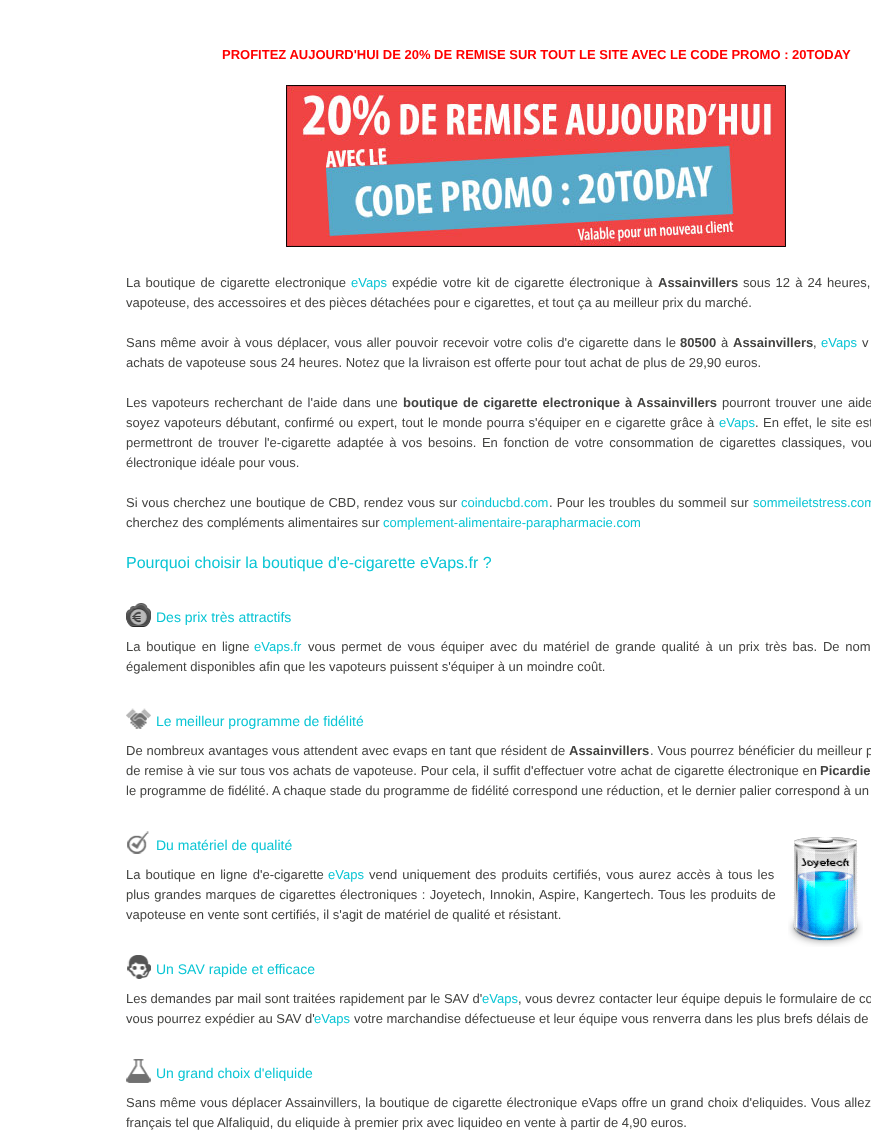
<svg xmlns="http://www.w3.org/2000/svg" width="871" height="1141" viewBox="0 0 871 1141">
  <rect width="100%" height="100%" fill="rgb(255,255,255)"/>
  <text x="222" y="59" font-family="Liberation Sans" font-size="13" font-weight="bold" fill="rgb(255,0,0)">PROFITEZ AUJOURD'HUI DE 20% DE REMISE SUR TOUT LE SITE AVEC LE CODE PROMO : 20TODAY</text>
  <image x="286" y="85" width="500" height="162" href="pic1.png"/>
  <text x="126" y="287" word-spacing="1.5" font-family="Liberation Sans" font-size="13" fill="rgb(67,67,65)">La boutique de cigarette electronique</text>
  <text x="351" y="287" font-family="Liberation Sans" font-size="13" fill="rgb(10,197,212)">eVaps</text>
  <text x="392" y="287" word-spacing="1.5" font-family="Liberation Sans" font-size="13" fill="rgb(67,67,65)">expédie votre kit de cigarette électronique à</text>
  <text x="658" y="287" font-family="Liberation Sans" font-size="13" font-weight="bold" fill="rgb(67,67,65)">Assainvillers</text>
  <g font-family="Liberation Sans" font-size="13" fill="rgb(67,67,65)">
    <text x="743" y="287" word-spacing="1.5">sous 12 à 24 heures,</text>
    <text x="126" y="307">vapoteuse, des accessoires et des pièces détachées pour e cigarettes, et tout ça au meilleur prix du marché.</text>
    <text x="126" y="347" word-spacing="0.9">Sans même avoir à vous déplacer, vous aller pouvoir recevoir votre colis d'e cigarette dans le</text>
  </g>
  <text x="680" y="347" font-family="Liberation Sans" font-size="13" font-weight="bold" fill="rgb(67,67,65)">80500</text>
  <text x="721" y="347" font-family="Liberation Sans" font-size="13" fill="rgb(67,67,65)">à</text>
  <text x="733" y="347" font-family="Liberation Sans" font-size="13" font-weight="bold" fill="rgb(67,67,65)">Assainvillers</text>
  <text x="813" y="347" font-family="Liberation Sans" font-size="13" fill="rgb(67,67,65)">,</text>
  <text x="821" y="347" font-family="Liberation Sans" font-size="13" fill="rgb(10,197,212)">eVaps</text>
  <g font-family="Liberation Sans" font-size="13" fill="rgb(67,67,65)">
    <text x="862" y="347" word-spacing="0.9">v</text>
    <text x="126" y="367">achats de vapoteuse sous 24 heures. Notez que la livraison est offerte pour tout achat de plus de 29,90 euros.</text>
    <text x="126" y="407" word-spacing="1.5">Les vapoteurs recherchant de l'aide dans une</text>
  </g>
  <text x="403" y="407" word-spacing="1.5" font-family="Liberation Sans" font-size="13" font-weight="bold" fill="rgb(67,67,65)">boutique de cigarette electronique à Assainvillers</text>
  <g font-family="Liberation Sans" font-size="13" fill="rgb(67,67,65)">
    <text x="722" y="407" word-spacing="1.5">pourront trouver une aide</text>
    <text x="126" y="427" word-spacing="0.8">soyez vapoteurs débutant, confirmé ou expert, tout le monde pourra s'équiper en e cigarette grâce à</text>
  </g>
  <text x="719" y="427" font-family="Liberation Sans" font-size="13" fill="rgb(10,197,212)">eVaps</text>
  <g font-family="Liberation Sans" font-size="13" fill="rgb(67,67,65)">
    <text x="755" y="427" word-spacing="0.8">. En effet, le site est</text>
    <text>
      <tspan x="126" y="447" word-spacing="2">permettront de trouver l'e-cigarette adaptée à vos besoins. En fonction de votre consommation de cigarettes classiques, vou</tspan>
      <tspan x="126" y="467">électronique idéale pour vous.</tspan>
    </text>
    <text x="126" y="507" word-spacing="0.5">Si vous cherchez une boutique de CBD, rendez vous sur</text>
  </g>
  <text x="461" y="507" font-family="Liberation Sans" font-size="13" fill="rgb(10,197,212)">coinducbd.com</text>
  <text x="549" y="507" word-spacing="0.5" font-family="Liberation Sans" font-size="13" fill="rgb(67,67,65)">. Pour les troubles du sommeil sur</text>
  <text x="753" y="507" font-family="Liberation Sans" font-size="13" fill="rgb(10,197,212)">sommeiletstress.com</text>
  <text x="126" y="527" font-family="Liberation Sans" font-size="13" fill="rgb(67,67,65)">cherchez des compléments alimentaires sur</text>
  <text x="383" y="527" font-family="Liberation Sans" font-size="13" fill="rgb(10,197,212)">complement-alimentaire-parapharmacie.com</text>
  <text x="126" y="568" font-family="Liberation Sans" font-size="16" fill="rgb(10,197,212)">Pourquoi choisir la boutique d'e-cigarette eVaps.fr ?</text>
  <image x="126" y="603" width="25" height="24" href="pic2.png"/>
  <text x="156" y="622" font-family="Liberation Sans" font-size="14" fill="rgb(10,197,212)">Des prix très attractifs</text>
  <text x="126" y="651" word-spacing="2.1" font-family="Liberation Sans" font-size="13" fill="rgb(67,67,65)">La boutique en ligne</text>
  <text x="254" y="651" font-family="Liberation Sans" font-size="13" fill="rgb(10,197,212)">eVaps.fr</text>
  <g font-family="Liberation Sans" font-size="13" fill="rgb(67,67,65)">
    <text x="308" y="651" word-spacing="2.1">vous permet de vous équiper avec du matériel de grande qualité à un prix très bas. De nom</text>
    <text x="126" y="671">également disponibles afin que les vapoteurs puissent s'équiper à un moindre coût.</text>
  </g>
  <image x="126" y="708" width="25" height="21" href="pic3.png"/>
  <text x="156" y="726" font-family="Liberation Sans" font-size="14" fill="rgb(10,197,212)">Le meilleur programme de fidélité</text>
  <text x="126" y="755" word-spacing="0.25" font-family="Liberation Sans" font-size="13" fill="rgb(67,67,65)">De nombreux avantages vous attendent avec evaps en tant que résident de</text>
  <text x="569" y="755" font-family="Liberation Sans" font-size="13" font-weight="bold" fill="rgb(67,67,65)">Assainvillers</text>
  <g font-family="Liberation Sans" font-size="13" fill="rgb(67,67,65)">
    <text x="650" y="755" word-spacing="0.25">. Vous pourrez bénéficier du meilleur p</text>
    <text x="126" y="775" word-spacing="0.2">de remise à vie sur tous vos achats de vapoteuse. Pour cela, il suffit d'effectuer votre achat de cigarette électronique en</text>
  </g>
  <text x="820" y="775" font-family="Liberation Sans" font-size="13" font-weight="bold" fill="rgb(67,67,65)">Picardie</text>
  <text x="126" y="795" font-family="Liberation Sans" font-size="13" fill="rgb(67,67,65)">le programme de fidélité. A chaque stade du programme de fidélité correspond une réduction, et le dernier palier correspond à un</text>
  <image x="127" y="831" width="22" height="23" href="pic4.png"/>
  <text x="156" y="850" font-family="Liberation Sans" font-size="14" fill="rgb(10,197,212)">Du matériel de qualité</text>
  <image x="788" y="837" width="75" height="110" href="pic5.png"/>
  <text x="126" y="879" word-spacing="1.5" font-family="Liberation Sans" font-size="13" fill="rgb(67,67,65)">La boutique en ligne d'e-cigarette</text>
  <text x="328" y="879" font-family="Liberation Sans" font-size="13" fill="rgb(10,197,212)">eVaps</text>
  <g font-family="Liberation Sans" font-size="13" fill="rgb(67,67,65)">
    <text x="369" y="879" word-spacing="1.5">vend uniquement des produits certifiés, vous aurez accès à tous les</text>
    <text>
      <tspan x="126" y="899" word-spacing="0.75">plus grandes marques de cigarettes électroniques : Joyetech, Innokin, Aspire, Kangertech. Tous les produits de</tspan>
      <tspan x="126" y="919">vapoteuse en vente sont certifiés, il s'agit de matériel de qualité et résistant.</tspan>
    </text>
  </g>
  <image x="127" y="955" width="24" height="24" href="pic6.png"/>
  <text x="156" y="974" font-family="Liberation Sans" font-size="14" fill="rgb(10,197,212)">Un SAV rapide et efficace</text>
  <text x="126" y="1003" font-family="Liberation Sans" font-size="13" fill="rgb(67,67,65)">Les demandes par mail sont traitées rapidement par le SAV d'</text>
  <text x="482" y="1003" font-family="Liberation Sans" font-size="13" fill="rgb(10,197,212)">eVaps</text>
  <g font-family="Liberation Sans" font-size="13" fill="rgb(67,67,65)">
    <text x="518" y="1003">, vous devrez contacter leur équipe depuis le formulaire de co</text>
    <text x="126" y="1023">vous pourrez expédier au SAV d'</text>
  </g>
  <text x="314" y="1023" font-family="Liberation Sans" font-size="13" fill="rgb(10,197,212)">eVaps</text>
  <text x="354" y="1023" font-family="Liberation Sans" font-size="13" fill="rgb(67,67,65)">votre marchandise défectueuse et leur équipe vous renverra dans les plus brefs délais de</text>
  <image x="126" y="1059" width="25" height="24" href="pic7.png"/>
  <text x="156" y="1078" font-family="Liberation Sans" font-size="14" fill="rgb(10,197,212)">Un grand choix d'eliquide</text>
  <g font-family="Liberation Sans" font-size="13" fill="rgb(67,67,65)">
    <text>
      <tspan x="126" y="1107" word-spacing="0.6">Sans même vous déplacer Assainvillers, la boutique de cigarette électronique eVaps offre un grand choix d'eliquides. Vous allez</tspan>
      <tspan x="126" y="1127">français tel que Alfaliquid, du eliquide à premier prix avec liquideo en vente à partir de 4,90 euros.</tspan>
    </text>
  </g>
</svg>
